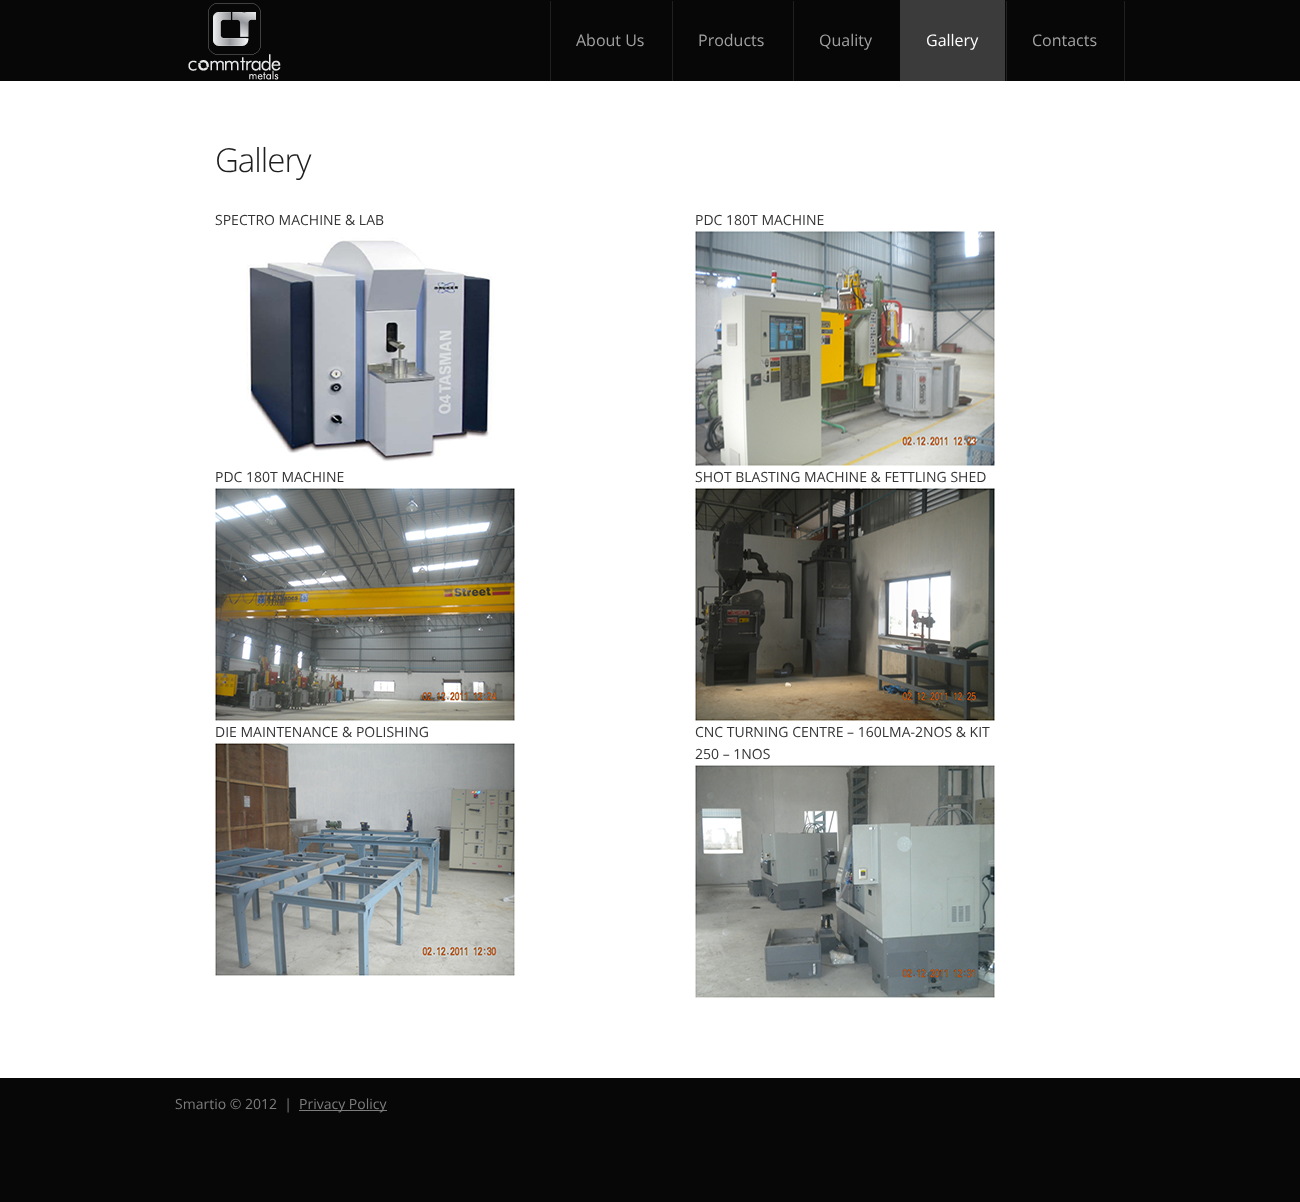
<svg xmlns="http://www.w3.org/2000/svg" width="1300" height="1202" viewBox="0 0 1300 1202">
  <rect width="100%" height="100%" fill="rgb(7,7,7)"/>
  <image x="188" y="3" width="93" height="77" href="pic1.png"/>
  <rect x="1124" y="1" width="1" height="80" fill="rgb(32,32,32)"/>
  <rect x="550" y="1" width="1" height="80" fill="rgb(32,32,32)"/>
  <text x="576" y="46" font-family="Open Sans" font-size="16" fill="rgb(162,161,161)">About Us</text>
  <rect x="672" y="1" width="1" height="80" fill="rgb(32,32,32)"/>
  <text x="698" y="46" font-family="Open Sans" font-size="16" fill="rgb(162,161,161)">Products</text>
  <rect x="793" y="1" width="1" height="80" fill="rgb(32,32,32)"/>
  <text x="819" y="46" font-family="Open Sans" font-size="16" fill="rgb(162,161,161)">Quality</text>
  <rect x="900" y="0" width="105" height="81" fill="rgb(59,59,59)"/>
  <text x="926" y="46" font-family="Open Sans" font-size="16" fill="rgb(255,255,255)">Gallery</text>
  <rect x="1006" y="1" width="1" height="80" fill="rgb(32,32,32)"/>
  <text x="1032" y="46" font-family="Open Sans" font-size="16" fill="rgb(162,161,161)">Contacts</text>
  <rect x="0" y="81" width="1300" height="997" fill="rgb(255,255,255)"/>
  <text x="215" y="172" font-family="Open Sans" font-size="33" font-weight="300" letter-spacing="-1" fill="rgb(29,29,30)">Gallery</text>
  <text x="215" y="225" font-family="Open Sans" font-size="14" fill="rgb(52,52,54)">SPECTRO MACHINE &amp; LAB</text>
  <image x="246" y="237" width="249" height="225" href="pic2.png"/>
  <text x="695" y="225" font-family="Open Sans" font-size="14" fill="rgb(52,52,54)">PDC 180T MACHINE</text>
  <image x="695" y="231" width="300" height="235" href="pic3.png"/>
  <text x="215" y="482" font-family="Open Sans" font-size="14" fill="rgb(52,52,54)">PDC 180T MACHINE</text>
  <image x="215" y="488" width="300" height="233" href="pic4.png"/>
  <text x="695" y="482" font-family="Open Sans" font-size="14" fill="rgb(52,52,54)">SHOT BLASTING MACHINE &amp; FETTLING SHED</text>
  <image x="695" y="488" width="300" height="233" href="pic5.png"/>
  <text x="215" y="737" font-family="Open Sans" font-size="14" fill="rgb(52,52,54)">DIE MAINTENANCE &amp; POLISHING</text>
  <image x="215" y="743" width="300" height="233" href="pic6.png"/>
  <g font-family="Open Sans" font-size="14" fill="rgb(52,52,54)">
    <text>
      <tspan x="695" y="737">CNC TURNING CENTRE – 160LMA-2NOS &amp; KIT</tspan>
      <tspan x="695" y="759">250 – 1NOS</tspan>
    </text>
  </g>
  <image x="695" y="765" width="300" height="233" href="pic7.png"/>
  <text x="175" y="1109" font-family="Open Sans" font-size="14" fill="rgb(125,125,125)" xml:space="preserve">Smartio © 2012  |</text>
  <rect x="299" y="1110" width="88" height="1" fill="rgb(125,125,125)"/>
  <text x="299" y="1109" font-family="Open Sans" font-size="14" fill="rgb(125,125,125)">Privacy Policy</text>
</svg>
